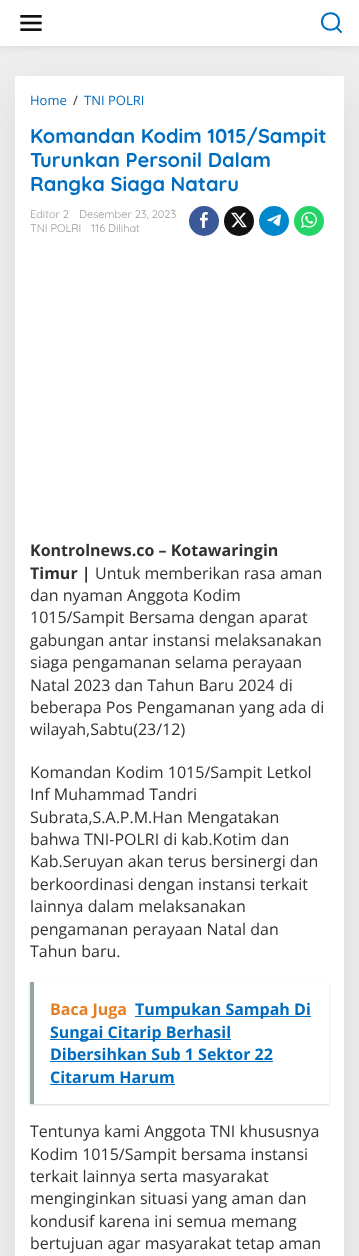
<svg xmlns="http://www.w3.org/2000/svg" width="359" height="1256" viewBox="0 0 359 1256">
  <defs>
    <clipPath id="clip1"><path d="M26 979H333V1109H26ZM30 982H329V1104H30Z" clip-rule="evenodd"/></clipPath>
  </defs>
  <rect width="100%" height="100%" fill="rgb(238,238,238)"/>
  <rect x="0" y="0" width="359" height="46" fill="rgba(0,0,0,0.1)" filter="blur(5px)"/>
  <rect x="15" y="92" width="329" height="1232" fill="rgba(0,0,0,0.07)" filter="blur(22.5px)"/>
  <rect x="0" y="0" width="359" height="46" fill="rgb(255,255,255)"/>
  <image x="20" y="15" width="22" height="16" href="pic1.png"/>
  <path d="M341 32L336.5 27.5M339 21.5C339 32.5 322 32.5 322 21.5C322 10.5 339 10.5 339 21.5Z" fill="none" stroke="rgb(0,109,193)" stroke-width="2" stroke-linecap="round"/>
  <rect x="15" y="76" width="329" height="1180" fill="rgb(255,255,255)"/>
  <text x="30" y="105" font-family="Open Sans" font-size="13" fill="rgb(0,109,193)">Home</text>
  <text x="73" y="105" font-family="Open Sans" font-size="13" fill="rgb(50,50,51)">/</text>
  <text x="84" y="105" font-family="Open Sans" font-size="13" fill="rgb(0,109,193)">TNI POLRI</text>
  <g font-family="Quicksand" font-size="20" font-weight="bold" fill="rgb(0,109,193)">
    <text>
      <tspan x="30" y="143">Komandan Kodim 1015/Sampit</tspan>
      <tspan x="30" y="167">Turunkan Personil Dalam</tspan>
      <tspan x="30" y="191">Rangka Siaga Nataru</tspan>
    </text>
  </g>
  <g font-family="Quicksand" font-size="11" fill="rgb(153,153,153)">
    <text x="30" y="218">Editor 2</text>
    <text x="79" y="218">Desember 23, 2023</text>
    <text x="30" y="232">TNI POLRI</text>
    <text x="91" y="232">116 Dilihat</text>
  </g>
  <circle cx="204" cy="221" r="15" fill="rgb(59,89,152)"/>
  <image x="200" y="212" width="8" height="16" href="pic2.png"/>
  <circle cx="239" cy="221" r="15" fill="rgb(18,18,18)"/>
  <image x="231" y="212" width="16" height="16" href="pic3.png"/>
  <circle cx="274" cy="221" r="15" fill="rgb(0,136,204)"/>
  <image x="267" y="214" width="14" height="12" href="pic4.png"/>
  <circle cx="309" cy="221" r="15" fill="rgb(37,211,102)"/>
  <image x="301" y="212" width="16" height="16" href="pic5.png"/>
  <g font-family="Open Sans" font-size="16" font-weight="bold" fill="rgb(50,50,51)">
    <text>
      <tspan x="30" y="556">Kontrolnews.co – Kotawaringin</tspan>
      <tspan x="30" y="579">Timur |</tspan>
    </text>
  </g>
  <g font-family="Open Sans" font-size="16" fill="rgb(50,50,51)">
    <text x="95" y="579">Untuk memberikan rasa aman</text>
    <text>
      <tspan x="30" y="601">dan nyaman Anggota Kodim</tspan>
      <tspan x="30" y="623">1015/Sampit Bersama dengan aparat</tspan>
      <tspan x="30" y="646">gabungan antar instansi melaksanakan</tspan>
      <tspan x="30" y="668">siaga pengamanan selama perayaan</tspan>
      <tspan x="30" y="691">Natal 2023 dan Tahun Baru 2024 di</tspan>
      <tspan x="30" y="713">beberapa Pos Pengamanan yang ada di</tspan>
      <tspan x="30" y="735">wilayah,Sabtu(23/12)</tspan>
    </text>
    <text>
      <tspan x="30" y="778">Komandan Kodim 1015/Sampit Letkol</tspan>
      <tspan x="30" y="800">Inf Muhammad Tandri</tspan>
      <tspan x="30" y="823">Subrata,S.A.P.M.Han Mengatakan</tspan>
      <tspan x="30" y="845">bahwa TNI-POLRI di kab.Kotim dan</tspan>
      <tspan x="30" y="867">Kab.Seruyan akan terus bersinergi dan</tspan>
      <tspan x="30" y="890">berkoordinasi dengan instansi terkait</tspan>
      <tspan x="30" y="912">lainnya dalam melaksanakan</tspan>
      <tspan x="30" y="935">pengamanan perayaan Natal dan</tspan>
      <tspan x="30" y="957">Tahun baru.</tspan>
    </text>
  </g>
  <g clip-path="url(#clip1)">
    <rect x="30" y="983" width="299" height="122" fill="rgba(0,0,0,0.17)" filter="blur(1px)"/>
  </g>
  <rect x="30" y="982" width="4" height="122" fill="rgb(149,165,166)"/>
  <text x="50" y="1015" font-family="Open Sans" font-size="16" font-weight="bold" fill="rgb(230,126,34)">Baca Juga</text>
  <rect x="135" y="1016" width="176" height="1" fill="rgb(0,109,193)"/>
  <text x="135" y="1015" font-family="Open Sans" font-size="16" font-weight="bold" fill="rgb(0,109,193)">Tumpukan Sampah Di</text>
  <rect x="50" y="1039" width="181" height="1" fill="rgb(0,109,193)"/>
  <g font-family="Open Sans" font-size="16" font-weight="bold" fill="rgb(0,109,193)">
    <text>
      <tspan x="50" y="1038">Sungai Citarip Berhasil</tspan>
      <tspan x="50" y="1060">Dibersihkan Sub 1 Sektor 22</tspan>
    </text>
  </g>
  <rect x="50" y="1061" width="223" height="1" fill="rgb(0,109,193)"/>
  <text x="50" y="1083" font-family="Open Sans" font-size="16" font-weight="bold" fill="rgb(0,109,193)">Citarum Harum</text>
  <rect x="50" y="1084" width="125" height="1" fill="rgb(0,109,193)"/>
  <g font-family="Open Sans" font-size="16" fill="rgb(50,50,51)">
    <text>
      <tspan x="30" y="1137">Tentunya kami Anggota TNI khususnya</tspan>
      <tspan x="30" y="1160">Kodim 1015/Sampit bersama instansi</tspan>
      <tspan x="30" y="1182">terkait lainnya serta masyarakat</tspan>
      <tspan x="30" y="1204">menginginkan situasi yang aman dan</tspan>
      <tspan x="30" y="1227">kondusif karena ini semua memang</tspan>
      <tspan x="30" y="1249">bertujuan agar masyarakat tetap aman</tspan>
    </text>
  </g>
</svg>
